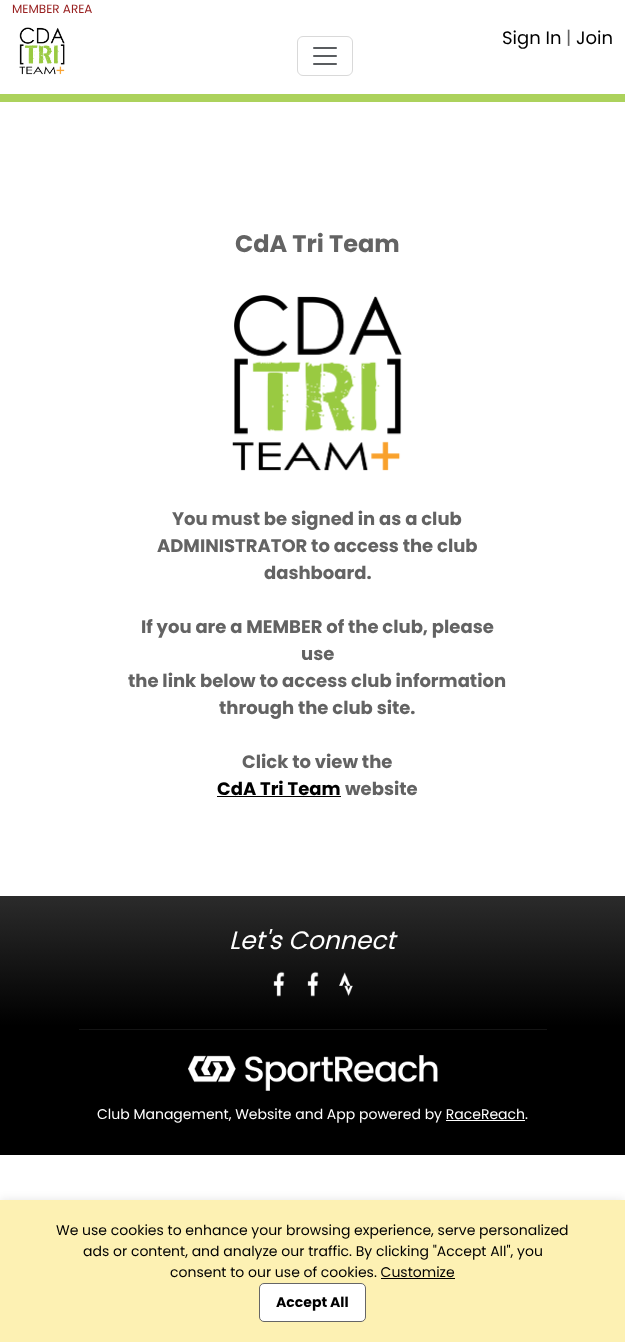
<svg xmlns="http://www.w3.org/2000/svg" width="625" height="1342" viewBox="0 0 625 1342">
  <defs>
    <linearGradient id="g1" gradientUnits="userSpaceOnUse" x1="313" y1="896" x2="313" y2="1155"><stop offset="0" stop-color="rgb(43,43,43)"/><stop offset="0.5" stop-color="rgb(0,0,0)"/></linearGradient>
  </defs>
  <rect width="100%" height="100%" fill="rgb(255,255,255)"/>
  <text x="12" y="13" font-family="Poppins" font-size="12" fill="rgb(153,34,34)">MEMBER AREA</text>
  <image x="19" y="27" width="46" height="48" href="pic1.png"/>
  <rect x="297.5" y="36.5" width="55" height="39" rx="5.5" fill="none" stroke="rgb(217,217,217)"/>
  <image x="313" y="47" width="24" height="18" href="pic2.png"/>
  <text x="502" y="44" font-family="Poppins" font-size="18" fill="rgb(0,0,0)">Sign In</text>
  <text x="566" y="44" font-family="Poppins" font-size="18" fill="rgb(99,99,99)">|</text>
  <text x="576" y="44" font-family="Poppins" font-size="18" fill="rgb(0,0,0)">Join</text>
  <rect x="0" y="94" width="625" height="8" fill="rgb(172,210,92)"/>
  <text x="235" y="252" font-family="Poppins" font-size="24" font-weight="bold" fill="rgb(99,99,99)">CdA Tri Team</text>
  <image x="232" y="295" width="170" height="176" href="pic3.png"/>
  <g font-family="Poppins" font-size="18" font-weight="bold" fill="rgb(99,99,99)">
    <text x="172" y="525">You must be signed in as a club</text>
    <text x="157" y="552">ADMINISTRATOR to access the club</text>
    <text x="264" y="579">dashboard.</text>
    <text x="141" y="633">If you are a MEMBER of the club, please</text>
    <text x="301" y="660">use</text>
    <text x="128" y="687">the link below to access club information</text>
    <text x="219" y="714">through the club site.</text>
    <text x="242" y="768">Click to view the</text>
  </g>
  <text x="217" y="795" font-family="Poppins" font-size="18" font-weight="bold" fill="rgb(0,0,0)">CdA Tri Team</text>
  <rect x="217" y="796" width="124" height="1" fill="rgb(0,0,0)"/>
  <text x="345" y="795" font-family="Poppins" font-size="18" font-weight="bold" fill="rgb(99,99,99)">website</text>
  <rect x="0" y="896" width="625" height="259" fill="url(#g1)"/>
  <text x="229" y="949" font-family="Poppins" font-size="25" font-style="italic" fill="rgb(255,255,255)">Let's Connect</text>
  <image x="273" y="971" width="12" height="26" href="pic4.png"/>
  <image x="307" y="971" width="12" height="26" href="pic5.png"/>
  <image x="339" y="972" width="14" height="25" href="pic6.png"/>
  <rect x="79" y="1029" width="468" height="1" fill="rgb(20,20,20)"/>
  <image x="188" y="1055" width="250" height="36" href="pic7.png"/>
  <text x="97" y="1119" font-family="Poppins" font-size="14" fill="rgb(255,255,255)">Club Management, Website and App powered by RaceReach.</text>
  <rect x="446" y="1120" width="79" height="1" fill="rgb(255,255,255)"/>
  <rect x="0" y="1200" width="625" height="142" fill="rgba(0,0,0,0.1)" filter="blur(5px)"/>
  <rect x="0" y="1200" width="625" height="142" fill="rgb(253,241,179)"/>
  <g font-family="Poppins" font-size="14" fill="rgb(0,0,0)">
    <text x="56" y="1235">We use cookies to enhance your browsing experience, serve personalized</text>
    <text x="83" y="1256">ads or content, and analyze our traffic. By clicking "Accept All", you</text>
    <text x="170" y="1277">consent to our use of cookies. Customize</text>
  </g>
  <rect x="381" y="1278" width="74" height="1" fill="rgb(0,0,0)"/>
  <rect x="259.5" y="1283.5" width="106" height="38" rx="4.5" fill="rgb(255,255,255)" stroke="rgb(102,102,102)"/>
  <text x="276" y="1307" font-family="Poppins" font-size="14" font-weight="bold" fill="rgb(0,0,0)">Accept All</text>
</svg>
